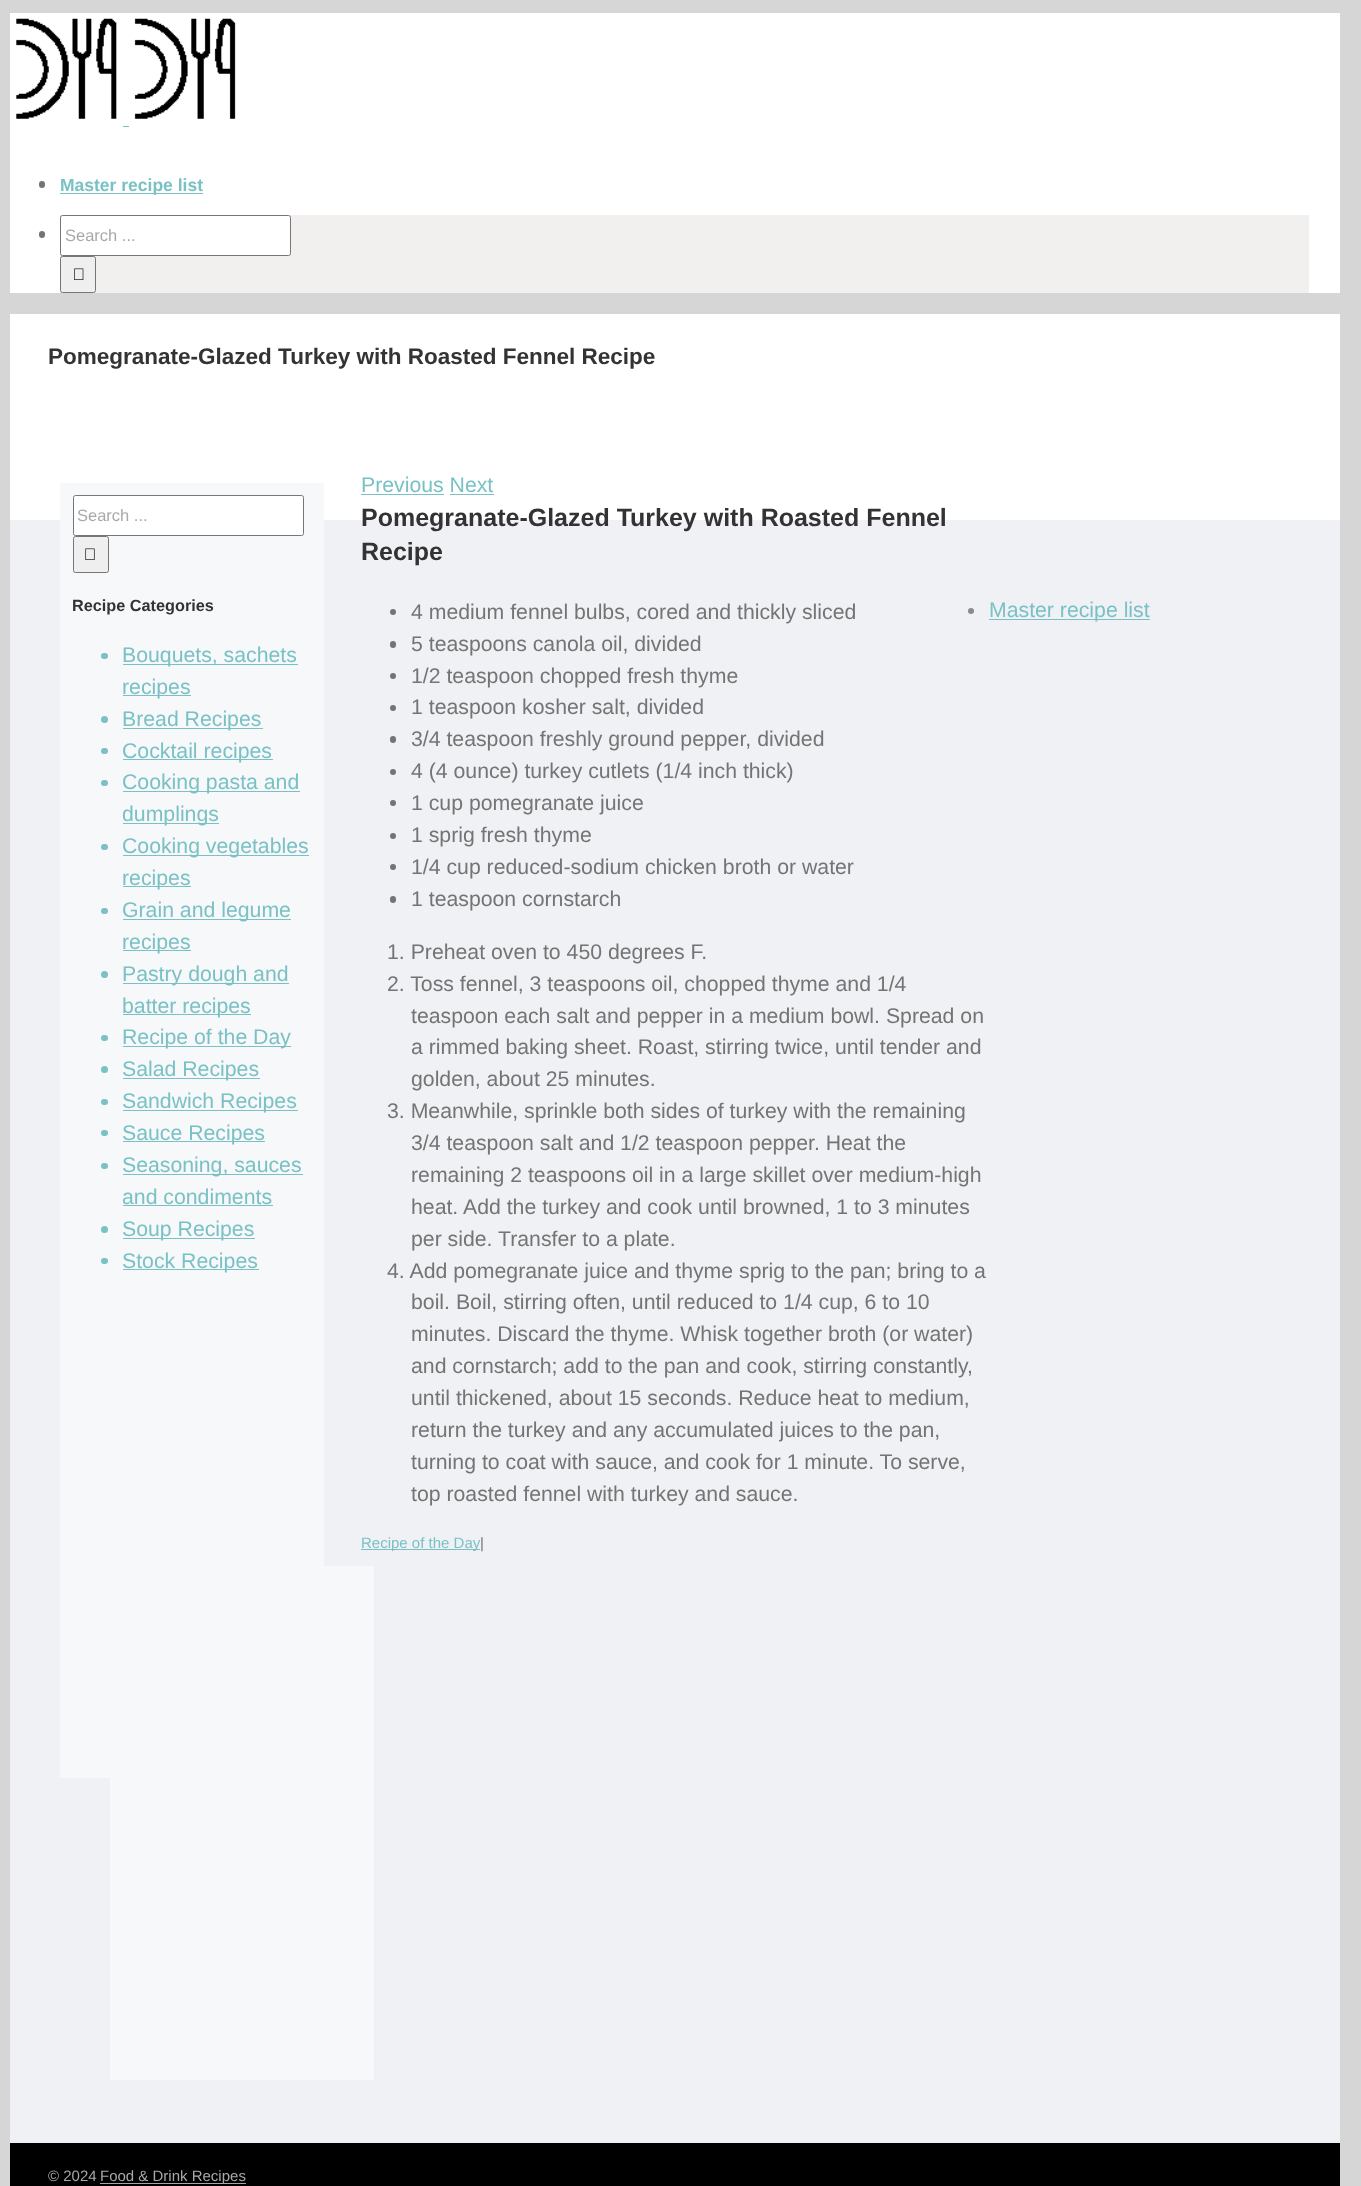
<svg xmlns="http://www.w3.org/2000/svg" width="1361" height="2186" viewBox="0 0 1361 2186">
  <rect width="100%" height="100%" fill="rgb(215,214,214)"/>
  <rect x="10" y="13" width="1330" height="280" fill="rgb(255,255,255)"/>
  <image x="16" y="18" width="101" height="101" href="pic1.png"/>
  <image x="134" y="18" width="102" height="101" href="pic2.png"/>
  <rect x="123" y="126" width="6" height="1" fill="rgb(121,193,197)"/>
  <rect x="39" y="181" width="6" height="7" rx="3" fill="rgb(116,116,116)"/>
  <rect x="60" y="193" width="143" height="1" fill="rgb(121,193,197)"/>
  <text x="60" y="191" font-family="Liberation Sans" font-size="17.5" font-weight="bold" fill="rgb(121,193,197)">Master recipe list</text>
  <rect x="39" y="231" width="6" height="7" rx="3" fill="rgb(116,116,116)"/>
  <rect x="60" y="215" width="1249" height="78" fill="rgb(242,239,239)"/>
  <rect x="60.5" y="215.5" width="230" height="40" rx="2" fill="rgb(255,255,255)" stroke="rgb(118,118,118)"/>
  <text x="65" y="241" font-family="Liberation Sans" font-size="16.5" fill="rgb(170,169,169)">Search ...</text>
  <rect x="60.5" y="256.5" width="35" height="36" rx="2" fill="rgb(239,239,239)" stroke="rgb(118,118,118)"/>
  <image x="74" y="268" width="10" height="12" href="pic3.png"/>
  <rect x="10" y="314" width="1330" height="206" fill="rgb(255,255,255)"/>
  <text x="48" y="364" font-family="Liberation Sans" font-size="22.5" font-weight="bold" fill="rgb(51,51,51)">Pomegranate-Glazed Turkey with Roasted Fennel Recipe</text>
  <rect x="10" y="520" width="1330" height="1623" fill="rgb(240,241,245)"/>
  <rect x="60" y="483" width="264" height="1295" fill="rgb(247,248,250)"/>
  <rect x="73.5" y="495.5" width="230" height="40" rx="2" fill="rgb(255,255,255)" stroke="rgb(118,118,118)"/>
  <text x="77" y="521" font-family="Liberation Sans" font-size="16.5" fill="rgb(170,169,169)">Search ...</text>
  <rect x="73.5" y="536.5" width="35" height="36" rx="2" fill="rgb(239,239,239)" stroke="rgb(118,118,118)"/>
  <image x="85" y="548" width="10" height="12" href="pic4.png"/>
  <text x="72" y="611" font-family="Liberation Sans" font-size="16.25" font-weight="bold" fill="rgb(51,51,51)">Recipe Categories</text>
  <rect x="101" y="653" width="7" height="6" rx="3" fill="rgb(121,193,197)"/>
  <rect x="123" y="664" width="175" height="1" fill="rgb(121,193,197)"/>
  <text x="122" y="662" font-family="Liberation Sans" font-size="21.25" fill="rgb(121,193,197)">Bouquets, sachets</text>
  <rect x="123" y="695" width="68" height="1" fill="rgb(121,193,197)"/>
  <text x="122" y="694" font-family="Liberation Sans" font-size="21.25" fill="rgb(121,193,197)">recipes</text>
  <circle cx="104.5" cy="719.5" r="3.5" fill="rgb(121,193,197)"/>
  <rect x="123" y="728" width="140" height="1" fill="rgb(121,193,197)"/>
  <text x="122" y="726" font-family="Liberation Sans" font-size="21.25" fill="rgb(121,193,197)">Bread Recipes</text>
  <rect x="101" y="748" width="7" height="6" rx="3" fill="rgb(121,193,197)"/>
  <rect x="123" y="759" width="150" height="1" fill="rgb(121,193,197)"/>
  <text x="122" y="758" font-family="Liberation Sans" font-size="21.25" fill="rgb(121,193,197)">Cocktail recipes</text>
  <rect x="101" y="780" width="7" height="6" rx="3" fill="rgb(121,193,197)"/>
  <rect x="123" y="791" width="177" height="1" fill="rgb(121,193,197)"/>
  <text x="122" y="789" font-family="Liberation Sans" font-size="21.25" fill="rgb(121,193,197)">Cooking pasta and</text>
  <rect x="123" y="823" width="96" height="1" fill="rgb(121,193,197)"/>
  <text x="122" y="821" font-family="Liberation Sans" font-size="21.25" fill="rgb(121,193,197)">dumplings</text>
  <rect x="101" y="844" width="7" height="6" rx="3" fill="rgb(121,193,197)"/>
  <rect x="123" y="855" width="186" height="1" fill="rgb(121,193,197)"/>
  <text x="122" y="853" font-family="Liberation Sans" font-size="21.25" fill="rgb(121,193,197)">Cooking vegetables</text>
  <rect x="123" y="886" width="68" height="1" fill="rgb(121,193,197)"/>
  <text x="122" y="885" font-family="Liberation Sans" font-size="21.25" fill="rgb(121,193,197)">recipes</text>
  <rect x="101" y="908" width="7" height="6" rx="3" fill="rgb(121,193,197)"/>
  <rect x="123" y="919" width="168" height="1" fill="rgb(121,193,197)"/>
  <text x="122" y="917" font-family="Liberation Sans" font-size="21.25" fill="rgb(121,193,197)">Grain and legume</text>
  <rect x="123" y="950" width="68" height="1" fill="rgb(121,193,197)"/>
  <text x="122" y="949" font-family="Liberation Sans" font-size="21.25" fill="rgb(121,193,197)">recipes</text>
  <circle cx="104.5" cy="974.5" r="3.5" fill="rgb(121,193,197)"/>
  <rect x="123" y="983" width="166" height="1" fill="rgb(121,193,197)"/>
  <text x="122" y="981" font-family="Liberation Sans" font-size="21.25" fill="rgb(121,193,197)">Pastry dough and</text>
  <rect x="123" y="1014" width="128" height="1" fill="rgb(121,193,197)"/>
  <text x="122" y="1013" font-family="Liberation Sans" font-size="21.25" fill="rgb(121,193,197)">batter recipes</text>
  <rect x="101" y="1035" width="7" height="6" rx="3" fill="rgb(121,193,197)"/>
  <rect x="123" y="1046" width="168" height="1" fill="rgb(121,193,197)"/>
  <text x="122" y="1044" font-family="Liberation Sans" font-size="21.25" fill="rgb(121,193,197)">Recipe of the Day</text>
  <circle cx="104.5" cy="1069.5" r="3.5" fill="rgb(121,193,197)"/>
  <rect x="123" y="1078" width="137" height="1" fill="rgb(121,193,197)"/>
  <text x="122" y="1076" font-family="Liberation Sans" font-size="21.25" fill="rgb(121,193,197)">Salad Recipes</text>
  <rect x="101" y="1099" width="7" height="6" rx="3" fill="rgb(121,193,197)"/>
  <rect x="123" y="1110" width="175" height="1" fill="rgb(121,193,197)"/>
  <text x="122" y="1108" font-family="Liberation Sans" font-size="21.25" fill="rgb(121,193,197)">Sandwich Recipes</text>
  <rect x="101" y="1130" width="7" height="6" rx="3" fill="rgb(121,193,197)"/>
  <rect x="123" y="1141" width="142" height="1" fill="rgb(121,193,197)"/>
  <text x="122" y="1140" font-family="Liberation Sans" font-size="21.25" fill="rgb(121,193,197)">Sauce Recipes</text>
  <rect x="101" y="1163" width="7" height="6" rx="3" fill="rgb(121,193,197)"/>
  <rect x="123" y="1174" width="180" height="1" fill="rgb(121,193,197)"/>
  <g font-family="Liberation Sans" font-size="21.25" fill="rgb(121,193,197)">
    <text>
      <tspan x="122" y="1172">Seasoning, sauces</tspan>
      <tspan x="122" y="1204">and condiments</tspan>
    </text>
  </g>
  <rect x="123" y="1205" width="150" height="1" fill="rgb(121,193,197)"/>
  <circle cx="104.5" cy="1229.5" r="3.5" fill="rgb(121,193,197)"/>
  <rect x="123" y="1238" width="132" height="1" fill="rgb(121,193,197)"/>
  <text x="122" y="1236" font-family="Liberation Sans" font-size="21.25" fill="rgb(121,193,197)">Soup Recipes</text>
  <rect x="101" y="1258" width="7" height="6" rx="3" fill="rgb(121,193,197)"/>
  <rect x="123" y="1269" width="136" height="1" fill="rgb(121,193,197)"/>
  <g font-family="Liberation Sans" font-size="21.25" fill="rgb(121,193,197)">
    <text x="122" y="1268">Stock Recipes</text>
    <text x="361" y="492">Previous Next</text>
  </g>
  <rect x="361" y="494" width="83" height="1" fill="rgb(121,193,197)"/>
  <rect x="450" y="494" width="44" height="1" fill="rgb(121,193,197)"/>
  <g font-family="Liberation Sans" font-size="25" font-weight="bold" fill="rgb(51,51,51)">
    <text>
      <tspan x="361" y="526">Pomegranate-Glazed Turkey with Roasted Fennel</tspan>
      <tspan x="361" y="560">Recipe</tspan>
    </text>
  </g>
  <circle cx="393" cy="612" r="3" fill="rgb(116,116,116)"/>
  <text x="411" y="619" font-family="Liberation Sans" font-size="21.25" fill="rgb(116,116,116)">4 medium fennel bulbs, cored and thickly sliced</text>
  <rect x="390" y="641" width="6" height="7" rx="3" fill="rgb(116,116,116)"/>
  <text x="411" y="651" font-family="Liberation Sans" font-size="21.25" fill="rgb(116,116,116)">5 teaspoons canola oil, divided</text>
  <circle cx="393" cy="676" r="3" fill="rgb(116,116,116)"/>
  <text x="411" y="683" font-family="Liberation Sans" font-size="21.25" fill="rgb(116,116,116)">1/2 teaspoon chopped fresh thyme</text>
  <circle cx="393" cy="708" r="3" fill="rgb(116,116,116)"/>
  <text x="411" y="714" font-family="Liberation Sans" font-size="21.25" fill="rgb(116,116,116)">1 teaspoon kosher salt, divided</text>
  <rect x="390" y="736" width="6" height="7" rx="3" fill="rgb(116,116,116)"/>
  <text x="411" y="746" font-family="Liberation Sans" font-size="21.25" fill="rgb(116,116,116)">3/4 teaspoon freshly ground pepper, divided</text>
  <circle cx="393" cy="772" r="3" fill="rgb(116,116,116)"/>
  <text x="411" y="778" font-family="Liberation Sans" font-size="21.25" fill="rgb(116,116,116)">4 (4 ounce) turkey cutlets (1/4 inch thick)</text>
  <circle cx="393" cy="803" r="3" fill="rgb(116,116,116)"/>
  <text x="411" y="810" font-family="Liberation Sans" font-size="21.25" fill="rgb(116,116,116)">1 cup pomegranate juice</text>
  <circle cx="393" cy="836" r="3" fill="rgb(116,116,116)"/>
  <text x="411" y="842" font-family="Liberation Sans" font-size="21.25" fill="rgb(116,116,116)">1 sprig fresh thyme</text>
  <circle cx="393" cy="867" r="3" fill="rgb(116,116,116)"/>
  <text x="411" y="874" font-family="Liberation Sans" font-size="21.25" fill="rgb(116,116,116)">1/4 cup reduced-sodium chicken broth or water</text>
  <rect x="390" y="896" width="6" height="7" rx="3" fill="rgb(116,116,116)"/>
  <g font-family="Liberation Sans" font-size="21.25" fill="rgb(116,116,116)">
    <text x="411" y="906">1 teaspoon cornstarch</text>
    <text>
      <tspan x="387" y="959">1. Preheat oven to 450 degrees F.</tspan>
      <tspan x="387" y="991">2. Toss fennel, 3 teaspoons oil, chopped thyme and 1/4</tspan>
    </text>
    <text>
      <tspan x="411" y="1023">teaspoon each salt and pepper in a medium bowl. Spread on</tspan>
      <tspan x="411" y="1054">a rimmed baking sheet. Roast, stirring twice, until tender and</tspan>
      <tspan x="411" y="1086">golden, about 25 minutes.</tspan>
    </text>
    <text x="387" y="1118">3. Meanwhile, sprinkle both sides of turkey with the remaining</text>
    <text>
      <tspan x="411" y="1150">3/4 teaspoon salt and 1/2 teaspoon pepper. Heat the</tspan>
      <tspan x="411" y="1182">remaining 2 teaspoons oil in a large skillet over medium-high</tspan>
      <tspan x="411" y="1214">heat. Add the turkey and cook until browned, 1 to 3 minutes</tspan>
      <tspan x="411" y="1246">per side. Transfer to a plate.</tspan>
    </text>
    <text x="387" y="1278">4. Add pomegranate juice and thyme sprig to the pan; bring to a</text>
    <text>
      <tspan x="411" y="1309">boil. Boil, stirring often, until reduced to 1/4 cup, 6 to 10</tspan>
      <tspan x="411" y="1341">minutes. Discard the thyme. Whisk together broth (or water)</tspan>
      <tspan x="411" y="1373">and cornstarch; add to the pan and cook, stirring constantly,</tspan>
      <tspan x="411" y="1405">until thickened, about 15 seconds. Reduce heat to medium,</tspan>
      <tspan x="411" y="1437">return the turkey and any accumulated juices to the pan,</tspan>
      <tspan x="411" y="1469">turning to coat with sauce, and cook for 1 minute. To serve,</tspan>
      <tspan x="411" y="1501">top roasted fennel with turkey and sauce.</tspan>
    </text>
  </g>
  <rect x="361" y="1549" width="119" height="1" fill="rgb(121,193,197)"/>
  <text x="361" y="1548" font-family="Liberation Sans" font-size="15" fill="rgb(121,193,197)">Recipe of the Day</text>
  <text x="480" y="1548" font-family="Liberation Sans" font-size="15" fill="rgb(116,116,116)">|</text>
  <rect x="110" y="1566" width="264" height="514" fill="rgb(247,248,250)"/>
  <circle cx="971" cy="611" r="3" fill="rgb(140,137,137)"/>
  <rect x="989" y="619" width="161" height="1" fill="rgb(121,193,197)"/>
  <text x="989" y="617" font-family="Liberation Sans" font-size="21.25" fill="rgb(121,193,197)">Master recipe list</text>
  <rect x="10" y="2143" width="1330" height="43" fill="rgb(0,0,0)"/>
  <text x="48" y="2181" font-family="Liberation Sans" font-size="15" fill="rgb(170,169,169)">© 2024</text>
  <rect x="100" y="2183" width="146" height="1" fill="rgb(167,166,165)"/>
  <text x="100" y="2181" font-family="Liberation Sans" font-size="15" fill="rgb(170,169,169)">Food &amp; Drink Recipes</text>
</svg>
